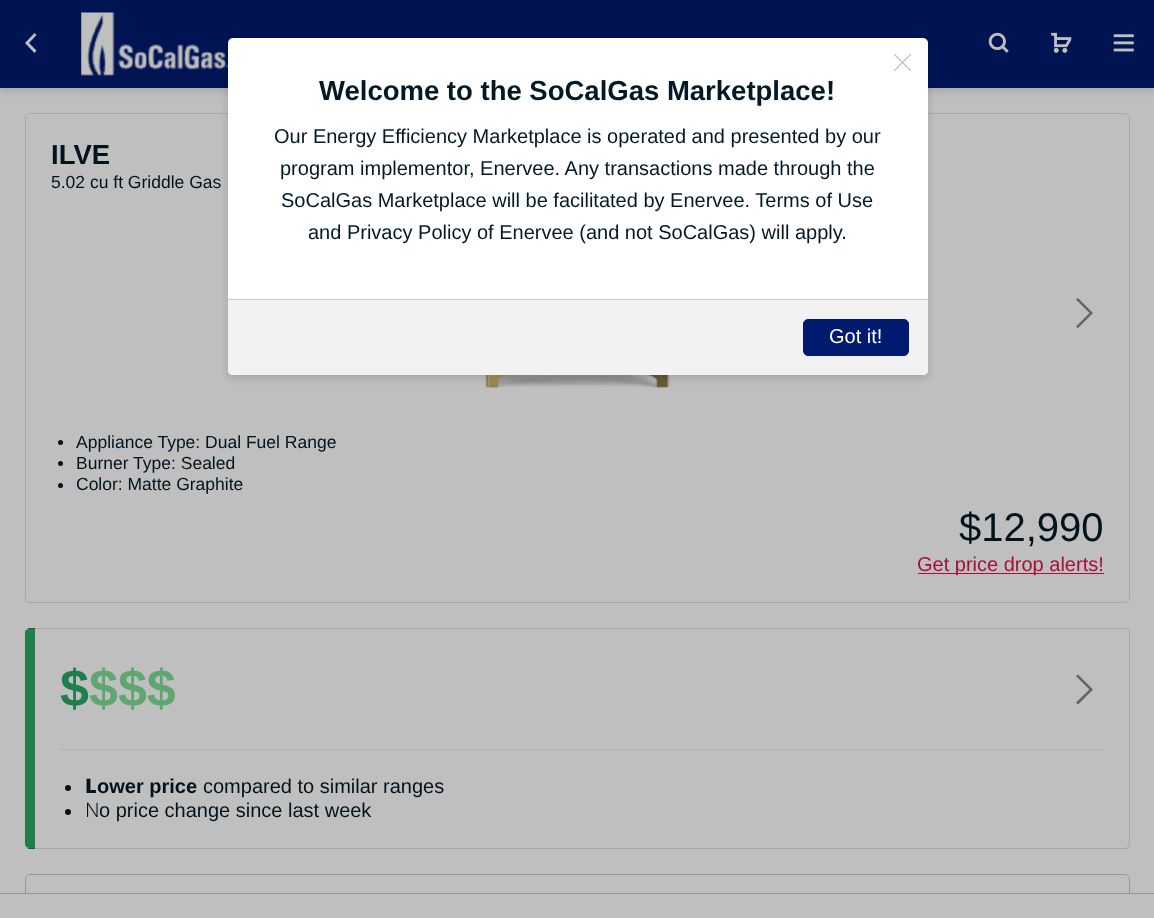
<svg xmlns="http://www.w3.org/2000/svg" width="1154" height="918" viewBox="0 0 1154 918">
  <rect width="100%" height="100%" fill="rgb(191,191,191)"/>
  <rect x="0" y="3" width="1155" height="87" fill="rgba(0,0,0,0.15)" filter="blur(4px)"/>
  <rect x="0" y="0" width="1154" height="88" fill="rgb(0,20,84)"/>
  <path d="M34.5 53L25 43L34.5 33L36.5 35L29 43L36.5 50.5Z" fill="rgb(191,191,191)"/>
  <image x="81" y="12" width="147" height="64" href="pic1.png"/>
  <image x="988" y="32" width="21" height="21" href="pic2.png"/>
  <image x="1051" y="32" width="21" height="21" href="pic3.png"/>
  <image x="1113" y="34" width="21" height="18" href="pic4.png"/>
  <rect x="25.5" y="113.5" width="1104" height="489" rx="4.5" fill="none" stroke="rgb(168,168,168)"/>
  <image x="483" y="375" width="189" height="13" href="pic6.png"/>
  <rect x="228" y="40" width="700" height="338" rx="5" fill="rgba(0,0,0,0.15)" filter="blur(4px)"/>
  <rect x="228" y="38" width="700" height="337" rx="5" fill="rgb(255,255,255)"/>
  <image x="893" y="53" width="19" height="19" href="pic5.png"/>
  <text x="319" y="100" font-family="Liberation Sans" font-size="27.5" font-weight="bold" fill="rgb(3,25,38)">Welcome to the SoCalGas Marketplace!</text>
  <g font-family="Liberation Sans" font-size="20" fill="rgb(3,25,38)">
    <text x="274" y="143">Our Energy Efficiency Marketplace is operated and presented by our</text>
    <text x="280" y="175">program implementor, Enervee. Any transactions made through the</text>
    <text x="281" y="207">SoCalGas Marketplace will be facilitated by Enervee. Terms of Use</text>
    <text x="308" y="239">and Privacy Policy of Enervee (and not SoCalGas) will apply.</text>
  </g>
  <path d="M228 299H928V370C928 373 926 375 923 375H233C230 375 228 373 228 370Z" fill="rgb(242,242,242)"/>
  <rect x="228" y="299" width="700" height="1" fill="rgb(203,203,203)"/>
  <rect x="803.5" y="319.5" width="105" height="36" rx="4.5" fill="rgb(0,26,112)" stroke="rgb(0,26,112)"/>
  <text x="829" y="343" font-family="Liberation Sans" font-size="20" fill="rgb(255,255,255)">Got it!</text>
  <text x="51" y="164" font-family="Liberation Sans" font-size="27.5" font-weight="bold" fill="rgb(2,19,29)">ILVE</text>
  <text x="51" y="188" font-family="Liberation Sans" font-size="17.5" fill="rgb(2,19,29)">5.02 cu ft Griddle Gas</text>
  <path d="M1078 298L1093 313L1078 328L1076 326.5L1089.5 313L1076 299.5Z" fill="rgb(93,101,107)"/>
  <circle cx="60.5" cy="442.5" r="2.5" fill="rgb(2,19,29)"/>
  <text x="76" y="448" font-family="Liberation Sans" font-size="17.5" fill="rgb(2,19,29)">Appliance Type: Dual Fuel Range</text>
  <circle cx="60.5" cy="463.5" r="2.5" fill="rgb(2,19,29)"/>
  <text x="76" y="469" font-family="Liberation Sans" font-size="17.5" fill="rgb(2,19,29)">Burner Type: Sealed</text>
  <circle cx="60.5" cy="485.5" r="2.5" fill="rgb(2,19,29)"/>
  <text x="76" y="490" font-family="Liberation Sans" font-size="17.5" fill="rgb(2,19,29)">Color: Matte Graphite</text>
  <text x="959" y="541" font-family="Liberation Sans" font-size="40" fill="rgb(2,19,29)">$12,990</text>
  <rect x="918" y="573" width="186" height="1" fill="rgb(167,14,57)"/>
  <text x="917" y="571" font-family="Liberation Sans" font-size="20" fill="rgb(167,14,57)">Get price drop alerts!</text>
  <path d="M30 628H1125C1128 628 1130 630 1130 632V844C1130 847 1128 849 1125 849H30C27 849 25 847 25 844V632C25 630 27 628 30 628ZM30 629H1125C1127 629 1129 630 1129 632V844C1129 846 1127 848 1125 848H30C27 848 25 846 25 844V632C25 630 27 629 30 629Z" fill="rgb(168,168,168)" fill-rule="evenodd"/>
  <path d="M30 629H35V848H30C27 848 25 846 25 844V632C25 630 27 629 30 629Z" fill="rgb(30,127,75)"/>
  <rect x="28" y="628" width="7" height="1" fill="rgb(24,102,60)"/>
  <rect x="28" y="848" width="7" height="1" fill="rgb(24,102,60)"/>
  <text x="60" y="706" font-family="Liberation Sans" font-size="52" font-weight="bold" fill="rgb(30,127,75)">$</text>
  <text x="89" y="706" font-family="Liberation Sans" font-size="52" font-weight="bold" fill="rgb(95,167,113)">$$$</text>
  <path d="M1078 674.5L1093 689.5L1078 704.5L1076 702.5L1089.5 689.5L1076 676Z" fill="rgb(93,101,107)"/>
  <path d="M60 749.5H1104" fill="none" stroke="rgb(168,168,168)" stroke-width="1.2" stroke-dasharray="1.25 1.25"/>
  <circle cx="68" cy="788" r="3" fill="rgb(2,19,29)"/>
  <text x="85" y="793" font-family="Noto Sans" font-size="20" font-weight="900" fill="rgb(2,19,29)">L</text>
  <text x="97" y="793" font-family="Liberation Sans" font-size="20" font-weight="bold" fill="rgb(2,19,29)">ower price</text>
  <text x="203" y="793" font-family="Liberation Sans" font-size="20" fill="rgb(2,19,29)">compared to similar ranges</text>
  <circle cx="68" cy="812" r="3" fill="rgb(2,19,29)"/>
  <text x="85" y="817" font-family="Noto Sans" font-size="20" font-weight="300" fill="rgb(2,19,29)">N</text>
  <text x="99" y="817" font-family="Liberation Sans" font-size="20" fill="rgb(2,19,29)">o price change since last week</text>
  <rect x="25.5" y="874.5" width="1104" height="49" rx="4.5" fill="none" stroke="rgb(152,152,152)"/>
  <rect x="25" y="894" width="1105" height="24" fill="rgb(191,191,191)"/>
  <rect x="0" y="893" width="1154" height="1" fill="rgb(152,152,152)"/>
</svg>
